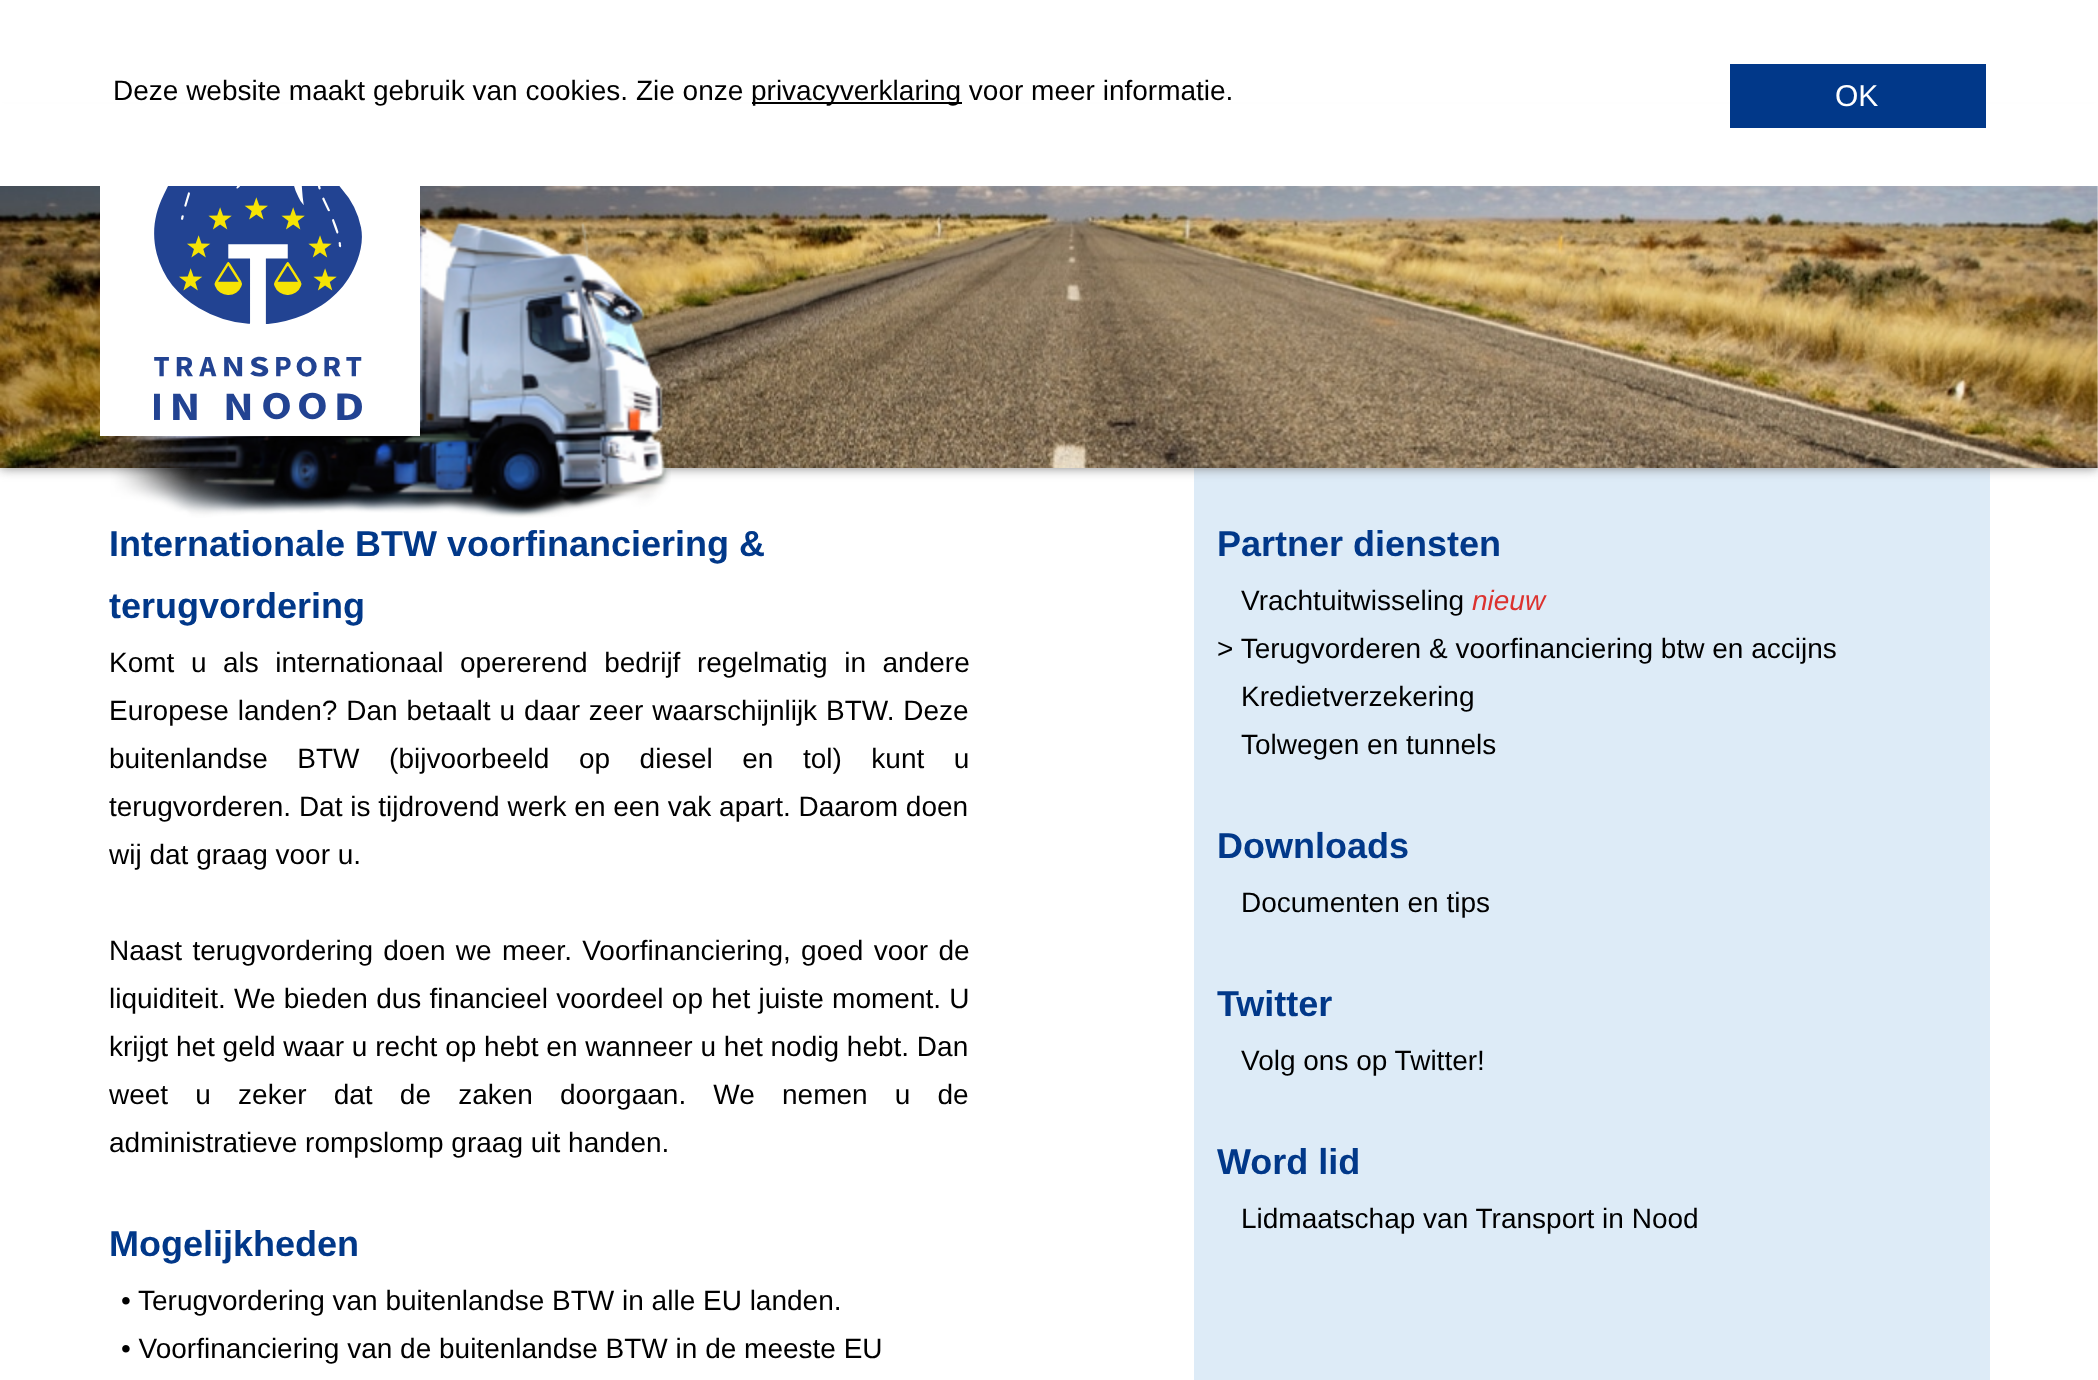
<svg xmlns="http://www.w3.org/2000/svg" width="2098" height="1380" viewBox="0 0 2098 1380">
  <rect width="100%" height="100%" fill="rgb(255,255,255)"/>
  <rect x="1194" y="468" width="796" height="912" fill="rgb(221,235,247)"/>
  <rect x="0" y="116" width="2098" height="352" fill="rgb(128,128,128)" filter="blur(6px)"/>
  <rect x="0" y="104" width="2098" height="82" fill="rgb(255,255,255)"/>
  <text x="113" y="100" font-family="Liberation Sans" font-size="28" fill="rgb(0,0,0)">Deze website maakt gebruik van cookies. Zie onze</text>
  <rect x="752" y="102" width="210" height="2" fill="rgb(0,0,0)"/>
  <text x="751" y="100" font-family="Liberation Sans" font-size="28" fill="rgb(0,0,0)">privacyverklaring voor meer informatie.</text>
  <rect x="1730" y="64" width="256" height="64" fill="rgb(1,56,137)"/>
  <text x="1835" y="106" font-family="Liberation Sans" font-size="30" fill="rgb(255,255,255)">OK</text>
  <rect x="2097" y="186" width="1" height="282" fill="rgb(255,255,255)"/>
  <image x="0" y="186" width="2098" height="282" href="pic1.png"/>
  <image x="110" y="221" width="561" height="297" href="pic3.png"/>
  <rect x="100" y="186" width="320" height="250" fill="rgb(255,255,255)"/>
  <image x="154" y="186" width="208" height="234" href="pic2.png"/>
  <g font-family="Liberation Sans" font-size="36" font-weight="bold" fill="rgb(1,56,137)">
    <text>
      <tspan x="109" y="556">Internationale BTW voorfinanciering &amp;</tspan>
      <tspan x="109" y="618">terugvordering</tspan>
    </text>
  </g>
  <g font-family="Liberation Sans" font-size="28" fill="rgb(0,0,0)">
    <text>
      <tspan x="109" y="672" word-spacing="8.75">Komt u als internationaal opererend bedrijf regelmatig in andere</tspan>
      <tspan x="109" y="720" word-spacing="1.1">Europese landen? Dan betaalt u daar zeer waarschijnlijk BTW. Deze</tspan>
      <tspan x="109" y="768" word-spacing="21.75">buitenlandse BTW (bijvoorbeeld op diesel en tol) kunt u</tspan>
      <tspan x="109" y="816">terugvorderen. Dat is tijdrovend werk en een vak apart. Daarom doen</tspan>
      <tspan x="109" y="864">wij dat graag voor u.</tspan>
    </text>
    <text>
      <tspan x="109" y="960" word-spacing="2.5">Naast terugvordering doen we meer. Voorfinanciering, goed voor de</tspan>
      <tspan x="109" y="1008" word-spacing="0.5">liquiditeit. We bieden dus financieel voordeel op het juiste moment. U</tspan>
      <tspan x="109" y="1056">krijgt het geld waar u recht op hebt en wanneer u het nodig hebt. Dan</tspan>
      <tspan x="109" y="1104" word-spacing="19.4">weet u zeker dat de zaken doorgaan. We nemen u de</tspan>
      <tspan x="109" y="1152">administratieve rompslomp graag uit handen.</tspan>
    </text>
  </g>
  <text x="109" y="1256" font-family="Liberation Sans" font-size="36" font-weight="bold" fill="rgb(1,56,137)">Mogelijkheden</text>
  <g font-family="Liberation Sans" font-size="28" fill="rgb(0,0,0)">
    <text x="121" y="1310">•</text>
    <text x="138" y="1310">Terugvordering van buitenlandse BTW in alle EU landen.</text>
    <text x="121" y="1358">• Voorfinanciering van de buitenlandse BTW in de meeste EU</text>
  </g>
  <text x="1217" y="556" font-family="Liberation Sans" font-size="36" font-weight="bold" fill="rgb(1,56,137)">Partner diensten</text>
  <text x="1241" y="610" font-family="Liberation Sans" font-size="28" fill="rgb(0,0,0)">Vrachtuitwisseling</text>
  <text x="1472" y="610" font-family="Liberation Sans" font-size="28" font-style="italic" fill="rgb(220,50,47)">nieuw</text>
  <g font-family="Liberation Sans" font-size="28" fill="rgb(0,0,0)">
    <text x="1217" y="658">&gt; Terugvorderen &amp; voorfinanciering btw en accijns</text>
    <text>
      <tspan x="1241" y="706">Kredietverzekering</tspan>
      <tspan x="1241" y="754">Tolwegen en tunnels</tspan>
    </text>
  </g>
  <text x="1217" y="858" font-family="Liberation Sans" font-size="36" font-weight="bold" fill="rgb(1,56,137)">Downloads</text>
  <text x="1241" y="912" font-family="Liberation Sans" font-size="28" fill="rgb(0,0,0)">Documenten en tips</text>
  <text x="1217" y="1016" font-family="Liberation Sans" font-size="36" font-weight="bold" fill="rgb(1,56,137)">Twitter</text>
  <text x="1241" y="1070" font-family="Liberation Sans" font-size="28" fill="rgb(0,0,0)">Volg ons op Twitter!</text>
  <text x="1217" y="1174" font-family="Liberation Sans" font-size="36" font-weight="bold" fill="rgb(1,56,137)">Word lid</text>
  <text x="1241" y="1228" font-family="Liberation Sans" font-size="28" fill="rgb(0,0,0)">Lidmaatschap van Transport in Nood</text>
</svg>
